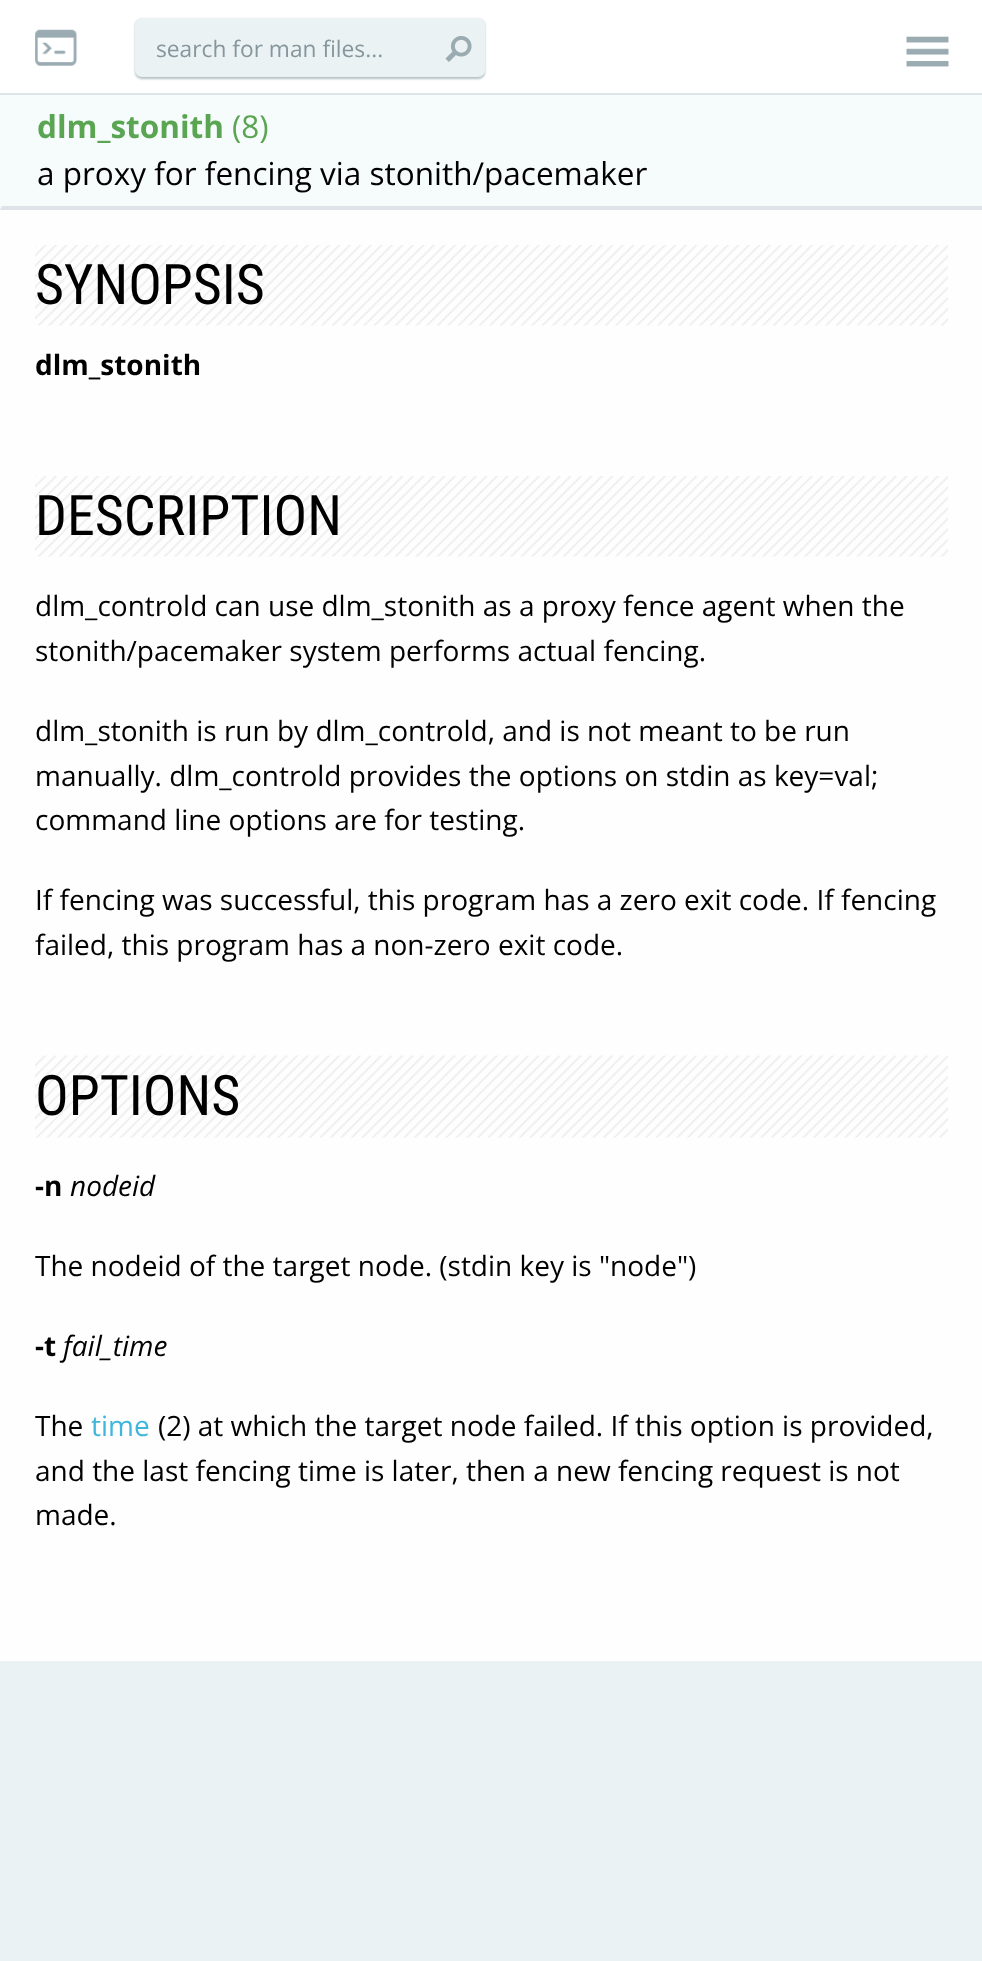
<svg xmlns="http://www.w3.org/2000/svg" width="982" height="1961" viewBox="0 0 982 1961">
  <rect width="100%" height="100%" fill="rgb(234,242,244)"/>
  <rect x="0" y="0" width="982" height="93" fill="rgb(255,255,255)"/>
  <rect x="0" y="93" width="982" height="2" fill="rgb(220,229,231)"/>
  <image x="35" y="29" width="43" height="37" href="pic1.png"/>
  <rect x="135" y="19" width="350" height="60" rx="7" fill="rgba(6,47,55,0.3)" filter="blur(1px)"/>
  <rect x="135" y="18" width="350" height="59" rx="7" fill="rgb(234,242,244)"/>
  <text x="156" y="57" font-family="Open Sans" font-size="22.75" fill="rgb(134,150,157)">search for man files...</text>
  <image x="445" y="36" width="27" height="26" href="pic2.png"/>
  <image x="906" y="36" width="43" height="31" href="pic3.png"/>
  <rect x="0" y="210" width="982" height="1451" fill="rgb(254,254,254)"/>
  <rect x="0" y="95" width="982" height="115" fill="rgb(246,251,252)"/>
  <path d="M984 210H0L2 206H982Z" fill="rgb(223,227,233)"/>
  <text x="37" y="138" font-family="Open Sans" font-size="31.5" font-weight="bold" fill="rgb(89,165,82)">dlm_stonith</text>
  <text x="232" y="138" font-family="Open Sans" font-size="31.5" fill="rgb(89,165,82)">(8)</text>
  <text x="37" y="185" font-family="Open Sans" font-size="31.5" fill="rgb(0,0,0)">a proxy for fencing via stonith/pacemaker</text>
  <image x="35" y="245" width="913" height="81" href="pic4.png"/>
  <text x="35" y="304" font-family="Roboto Condensed" font-size="56" fill="rgb(0,0,0)">SYNOPSIS</text>
  <text x="35" y="375" font-family="Open Sans" font-size="28" font-weight="bold" fill="rgb(0,0,0)">dlm_stonith</text>
  <image x="35" y="476" width="913" height="81" href="pic4.png"/>
  <text x="35" y="535" font-family="Roboto Condensed" font-size="56" fill="rgb(0,0,0)">DESCRIPTION</text>
  <g font-family="Open Sans" font-size="28" fill="rgb(0,0,0)">
    <text>
      <tspan x="35" y="616">dlm_controld can use dlm_stonith as a proxy fence agent when the</tspan>
      <tspan x="35" y="661">stonith/pacemaker system performs actual fencing.</tspan>
    </text>
    <text>
      <tspan x="35" y="741">dlm_stonith is run by dlm_controld, and is not meant to be run</tspan>
      <tspan x="35" y="786">manually. dlm_controld provides the options on stdin as key=val;</tspan>
      <tspan x="35" y="830">command line options are for testing.</tspan>
    </text>
    <text>
      <tspan x="35" y="910">If fencing was successful, this program has a zero exit code. If fencing</tspan>
      <tspan x="35" y="955">failed, this program has a non-zero exit code.</tspan>
    </text>
  </g>
  <image x="35" y="1055" width="913" height="83" href="pic5.png"/>
  <text x="35" y="1115" font-family="Roboto Condensed" font-size="56" fill="rgb(0,0,0)">OPTIONS</text>
  <text x="35" y="1196" font-family="Open Sans" font-size="28" font-weight="bold" fill="rgb(0,0,0)">-n</text>
  <text x="70" y="1196" font-family="Open Sans" font-size="28" font-style="italic" fill="rgb(0,0,0)">nodeid</text>
  <text x="35" y="1276" font-family="Open Sans" font-size="28" fill="rgb(0,0,0)">The nodeid of the target node. (stdin key is "node")</text>
  <text x="35" y="1356" font-family="Open Sans" font-size="28" font-weight="bold" fill="rgb(0,0,0)">-t</text>
  <text x="63" y="1356" font-family="Open Sans" font-size="28" font-style="italic" fill="rgb(0,0,0)">fail_time</text>
  <text x="35" y="1436" font-family="Open Sans" font-size="28" fill="rgb(0,0,0)">The</text>
  <text x="91" y="1436" font-family="Open Sans" font-size="28" fill="rgb(61,184,219)">time</text>
  <g font-family="Open Sans" font-size="28" fill="rgb(0,0,0)">
    <text x="158" y="1436">(2) at which the target node failed. If this option is provided,</text>
    <text>
      <tspan x="35" y="1481">and the last fencing time is later, then a new fencing request is not</tspan>
      <tspan x="35" y="1525">made.</tspan>
    </text>
  </g>
</svg>
